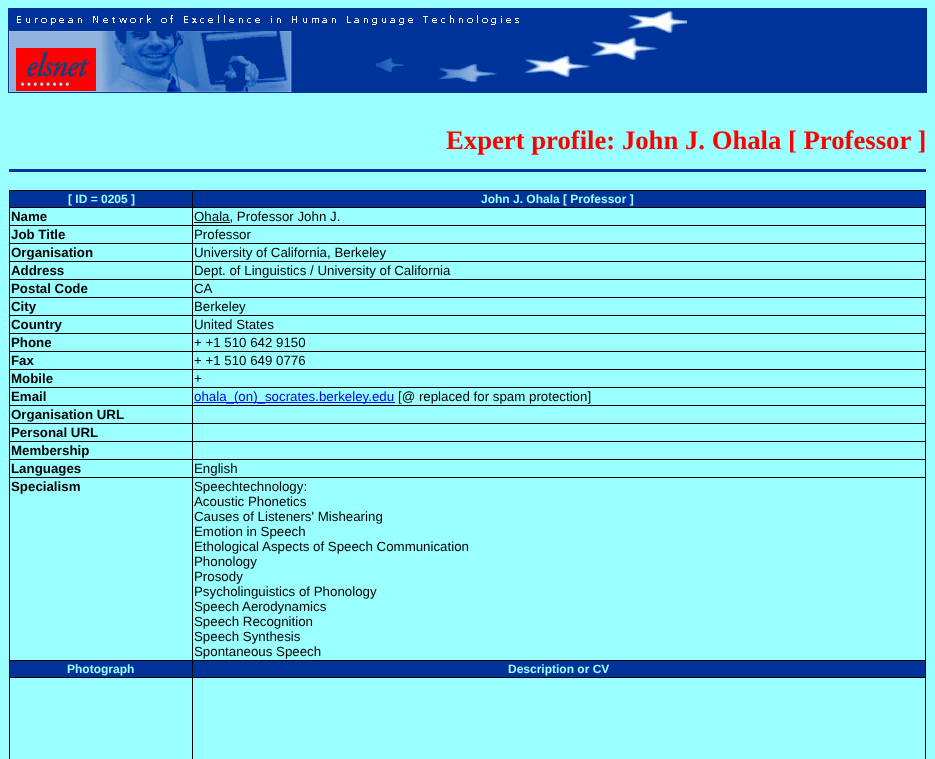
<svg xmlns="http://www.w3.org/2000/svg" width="935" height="759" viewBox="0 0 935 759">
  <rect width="100%" height="100%" fill="rgb(153,255,255)"/>
  <rect x="8" y="8" width="919" height="85" fill="rgb(0,51,153)"/>
  <image x="9" y="9" width="680" height="83" href="pic1.png"/>
  <text x="446" y="149" font-family="Liberation Serif" font-size="26.7" font-weight="bold" fill="rgb(255,0,0)">Expert profile: John J. Ohala [ Professor ]</text>
  <rect x="9" y="169" width="917" height="3" fill="rgb(0,51,153)"/>
  <rect x="9" y="190" width="917" height="1" fill="rgb(0,0,0)"/>
  <rect x="925" y="190" width="1" height="569" fill="rgb(0,0,0)"/>
  <rect x="9" y="190" width="1" height="569" fill="rgb(0,0,0)"/>
  <rect x="10" y="191" width="182" height="16" fill="rgb(0,51,153)"/>
  <text x="68" y="203" font-family="Liberation Sans" font-size="12" font-weight="bold" fill="rgb(153,255,255)">[ ID = 0205 ]</text>
  <rect x="193" y="191" width="732" height="16" fill="rgb(0,51,153)"/>
  <rect x="192" y="207" width="734" height="1" fill="rgb(0,0,0)"/>
  <rect x="192" y="225" width="734" height="1" fill="rgb(0,0,0)"/>
  <rect x="192" y="243" width="734" height="1" fill="rgb(0,0,0)"/>
  <rect x="192" y="261" width="734" height="1" fill="rgb(0,0,0)"/>
  <rect x="192" y="279" width="734" height="1" fill="rgb(0,0,0)"/>
  <rect x="192" y="297" width="734" height="1" fill="rgb(0,0,0)"/>
  <rect x="192" y="315" width="734" height="1" fill="rgb(0,0,0)"/>
  <rect x="192" y="333" width="734" height="1" fill="rgb(0,0,0)"/>
  <rect x="192" y="351" width="734" height="1" fill="rgb(0,0,0)"/>
  <rect x="192" y="369" width="734" height="1" fill="rgb(0,0,0)"/>
  <rect x="192" y="387" width="734" height="1" fill="rgb(0,0,0)"/>
  <rect x="192" y="405" width="734" height="1" fill="rgb(0,0,0)"/>
  <rect x="192" y="423" width="734" height="1" fill="rgb(0,0,0)"/>
  <rect x="192" y="441" width="734" height="1" fill="rgb(0,0,0)"/>
  <rect x="192" y="459" width="734" height="1" fill="rgb(0,0,0)"/>
  <rect x="192" y="477" width="734" height="1" fill="rgb(0,0,0)"/>
  <rect x="192" y="660" width="734" height="1" fill="rgb(0,0,0)"/>
  <rect x="192" y="677" width="734" height="1" fill="rgb(0,0,0)"/>
  <rect x="192" y="677" width="1" height="82" fill="rgb(0,0,0)"/>
  <rect x="9" y="677" width="184" height="1" fill="rgb(0,0,0)"/>
  <rect x="192" y="660" width="1" height="18" fill="rgb(0,0,0)"/>
  <rect x="9" y="660" width="184" height="1" fill="rgb(0,0,0)"/>
  <rect x="192" y="477" width="1" height="184" fill="rgb(0,0,0)"/>
  <rect x="9" y="477" width="184" height="1" fill="rgb(0,0,0)"/>
  <rect x="192" y="459" width="1" height="19" fill="rgb(0,0,0)"/>
  <rect x="9" y="459" width="184" height="1" fill="rgb(0,0,0)"/>
  <rect x="192" y="441" width="1" height="19" fill="rgb(0,0,0)"/>
  <rect x="9" y="441" width="184" height="1" fill="rgb(0,0,0)"/>
  <rect x="192" y="423" width="1" height="19" fill="rgb(0,0,0)"/>
  <rect x="9" y="423" width="184" height="1" fill="rgb(0,0,0)"/>
  <rect x="192" y="405" width="1" height="19" fill="rgb(0,0,0)"/>
  <rect x="9" y="405" width="184" height="1" fill="rgb(0,0,0)"/>
  <rect x="192" y="387" width="1" height="19" fill="rgb(0,0,0)"/>
  <rect x="9" y="387" width="184" height="1" fill="rgb(0,0,0)"/>
  <rect x="192" y="369" width="1" height="19" fill="rgb(0,0,0)"/>
  <rect x="9" y="369" width="184" height="1" fill="rgb(0,0,0)"/>
  <rect x="192" y="351" width="1" height="19" fill="rgb(0,0,0)"/>
  <rect x="9" y="351" width="184" height="1" fill="rgb(0,0,0)"/>
  <rect x="192" y="333" width="1" height="19" fill="rgb(0,0,0)"/>
  <rect x="9" y="333" width="184" height="1" fill="rgb(0,0,0)"/>
  <rect x="192" y="315" width="1" height="19" fill="rgb(0,0,0)"/>
  <rect x="9" y="315" width="184" height="1" fill="rgb(0,0,0)"/>
  <rect x="192" y="297" width="1" height="19" fill="rgb(0,0,0)"/>
  <rect x="9" y="297" width="184" height="1" fill="rgb(0,0,0)"/>
  <rect x="192" y="279" width="1" height="19" fill="rgb(0,0,0)"/>
  <rect x="9" y="279" width="184" height="1" fill="rgb(0,0,0)"/>
  <rect x="192" y="261" width="1" height="19" fill="rgb(0,0,0)"/>
  <rect x="9" y="261" width="184" height="1" fill="rgb(0,0,0)"/>
  <rect x="192" y="243" width="1" height="19" fill="rgb(0,0,0)"/>
  <rect x="9" y="243" width="184" height="1" fill="rgb(0,0,0)"/>
  <rect x="192" y="225" width="1" height="19" fill="rgb(0,0,0)"/>
  <rect x="9" y="225" width="184" height="1" fill="rgb(0,0,0)"/>
  <rect x="192" y="207" width="1" height="19" fill="rgb(0,0,0)"/>
  <rect x="9" y="207" width="184" height="1" fill="rgb(0,0,0)"/>
  <rect x="192" y="190" width="1" height="18" fill="rgb(0,0,0)"/>
  <text x="481" y="203" font-family="Liberation Sans" font-size="12" font-weight="bold" fill="rgb(153,255,255)">John J. Ohala [ Professor ]</text>
  <text x="11" y="221" font-family="Liberation Sans" font-size="13.3" font-weight="bold" fill="rgb(0,0,0)">Name</text>
  <rect x="194" y="222" width="36" height="1" fill="rgb(0,0,0)"/>
  <text x="194" y="221" font-family="Liberation Sans" font-size="13.3" fill="rgb(0,0,0)">Ohala, Professor John J.</text>
  <text x="11" y="239" font-family="Liberation Sans" font-size="13.3" font-weight="bold" fill="rgb(0,0,0)">Job Title</text>
  <text x="194" y="239" font-family="Liberation Sans" font-size="13.3" fill="rgb(0,0,0)">Professor</text>
  <text x="11" y="257" font-family="Liberation Sans" font-size="13.3" font-weight="bold" fill="rgb(0,0,0)">Organisation</text>
  <text x="194" y="257" font-family="Liberation Sans" font-size="13.3" fill="rgb(0,0,0)">University of California, Berkeley</text>
  <text x="11" y="275" font-family="Liberation Sans" font-size="13.3" font-weight="bold" fill="rgb(0,0,0)">Address</text>
  <text x="194" y="275" font-family="Liberation Sans" font-size="13.3" fill="rgb(0,0,0)">Dept. of Linguistics / University of California</text>
  <text x="11" y="293" font-family="Liberation Sans" font-size="13.3" font-weight="bold" fill="rgb(0,0,0)">Postal Code</text>
  <text x="194" y="293" font-family="Liberation Sans" font-size="13.3" fill="rgb(0,0,0)">CA</text>
  <text x="11" y="311" font-family="Liberation Sans" font-size="13.3" font-weight="bold" fill="rgb(0,0,0)">City</text>
  <text x="194" y="311" font-family="Liberation Sans" font-size="13.3" fill="rgb(0,0,0)">Berkeley</text>
  <text x="11" y="329" font-family="Liberation Sans" font-size="13.3" font-weight="bold" fill="rgb(0,0,0)">Country</text>
  <text x="194" y="329" font-family="Liberation Sans" font-size="13.3" fill="rgb(0,0,0)">United States</text>
  <text x="11" y="347" font-family="Liberation Sans" font-size="13.3" font-weight="bold" fill="rgb(0,0,0)">Phone</text>
  <text x="194" y="347" font-family="Liberation Sans" font-size="13.3" fill="rgb(0,0,0)">+ +1 510 642 9150</text>
  <text x="11" y="365" font-family="Liberation Sans" font-size="13.3" font-weight="bold" fill="rgb(0,0,0)">Fax</text>
  <text x="194" y="365" font-family="Liberation Sans" font-size="13.3" fill="rgb(0,0,0)">+ +1 510 649 0776</text>
  <text x="11" y="383" font-family="Liberation Sans" font-size="13.3" font-weight="bold" fill="rgb(0,0,0)">Mobile</text>
  <text x="194" y="383" font-family="Liberation Sans" font-size="13.3" fill="rgb(0,0,0)">+</text>
  <text x="11" y="401" font-family="Liberation Sans" font-size="13.3" font-weight="bold" fill="rgb(0,0,0)">Email</text>
  <rect x="194" y="402" width="201" height="1" fill="rgb(0,0,238)"/>
  <text x="194" y="401" font-family="Liberation Sans" font-size="13.3" fill="rgb(0,0,238)">ohala_(on)_socrates.berkeley.edu</text>
  <text x="398" y="401" font-family="Liberation Sans" font-size="13.3" fill="rgb(0,0,0)">[@ replaced for spam protection]</text>
  <g font-family="Liberation Sans" font-size="13.3" font-weight="bold" fill="rgb(0,0,0)">
    <text>
      <tspan x="11" y="419">Organisation URL</tspan>
      <tspan x="11" y="437">Personal URL</tspan>
      <tspan x="11" y="455">Membership</tspan>
      <tspan x="11" y="473">Languages</tspan>
    </text>
  </g>
  <text x="194" y="473" font-family="Liberation Sans" font-size="13.3" fill="rgb(0,0,0)">English</text>
  <text x="11" y="491" font-family="Liberation Sans" font-size="13.3" font-weight="bold" fill="rgb(0,0,0)">Specialism</text>
  <g font-family="Liberation Sans" font-size="13.3" fill="rgb(0,0,0)">
    <text>
      <tspan x="194" y="491">Speechtechnology:</tspan>
      <tspan x="194" y="506">Acoustic Phonetics</tspan>
      <tspan x="194" y="521">Causes of Listeners' Mishearing</tspan>
      <tspan x="194" y="536">Emotion in Speech</tspan>
      <tspan x="194" y="551">Ethological Aspects of Speech Communication</tspan>
      <tspan x="194" y="566">Phonology</tspan>
      <tspan x="194" y="581">Prosody</tspan>
      <tspan x="194" y="596">Psycholinguistics of Phonology</tspan>
      <tspan x="194" y="611">Speech Aerodynamics</tspan>
      <tspan x="194" y="626">Speech Recognition</tspan>
      <tspan x="194" y="641">Speech Synthesis</tspan>
      <tspan x="194" y="656">Spontaneous Speech</tspan>
    </text>
  </g>
  <rect x="10" y="661" width="182" height="16" fill="rgb(0,51,153)"/>
  <text x="67" y="673" font-family="Liberation Sans" font-size="12" font-weight="bold" fill="rgb(153,255,255)">Photograph</text>
  <rect x="193" y="661" width="732" height="16" fill="rgb(0,51,153)"/>
  <text x="508" y="673" font-family="Liberation Sans" font-size="12" font-weight="bold" fill="rgb(153,255,255)">Description or CV</text>
</svg>
